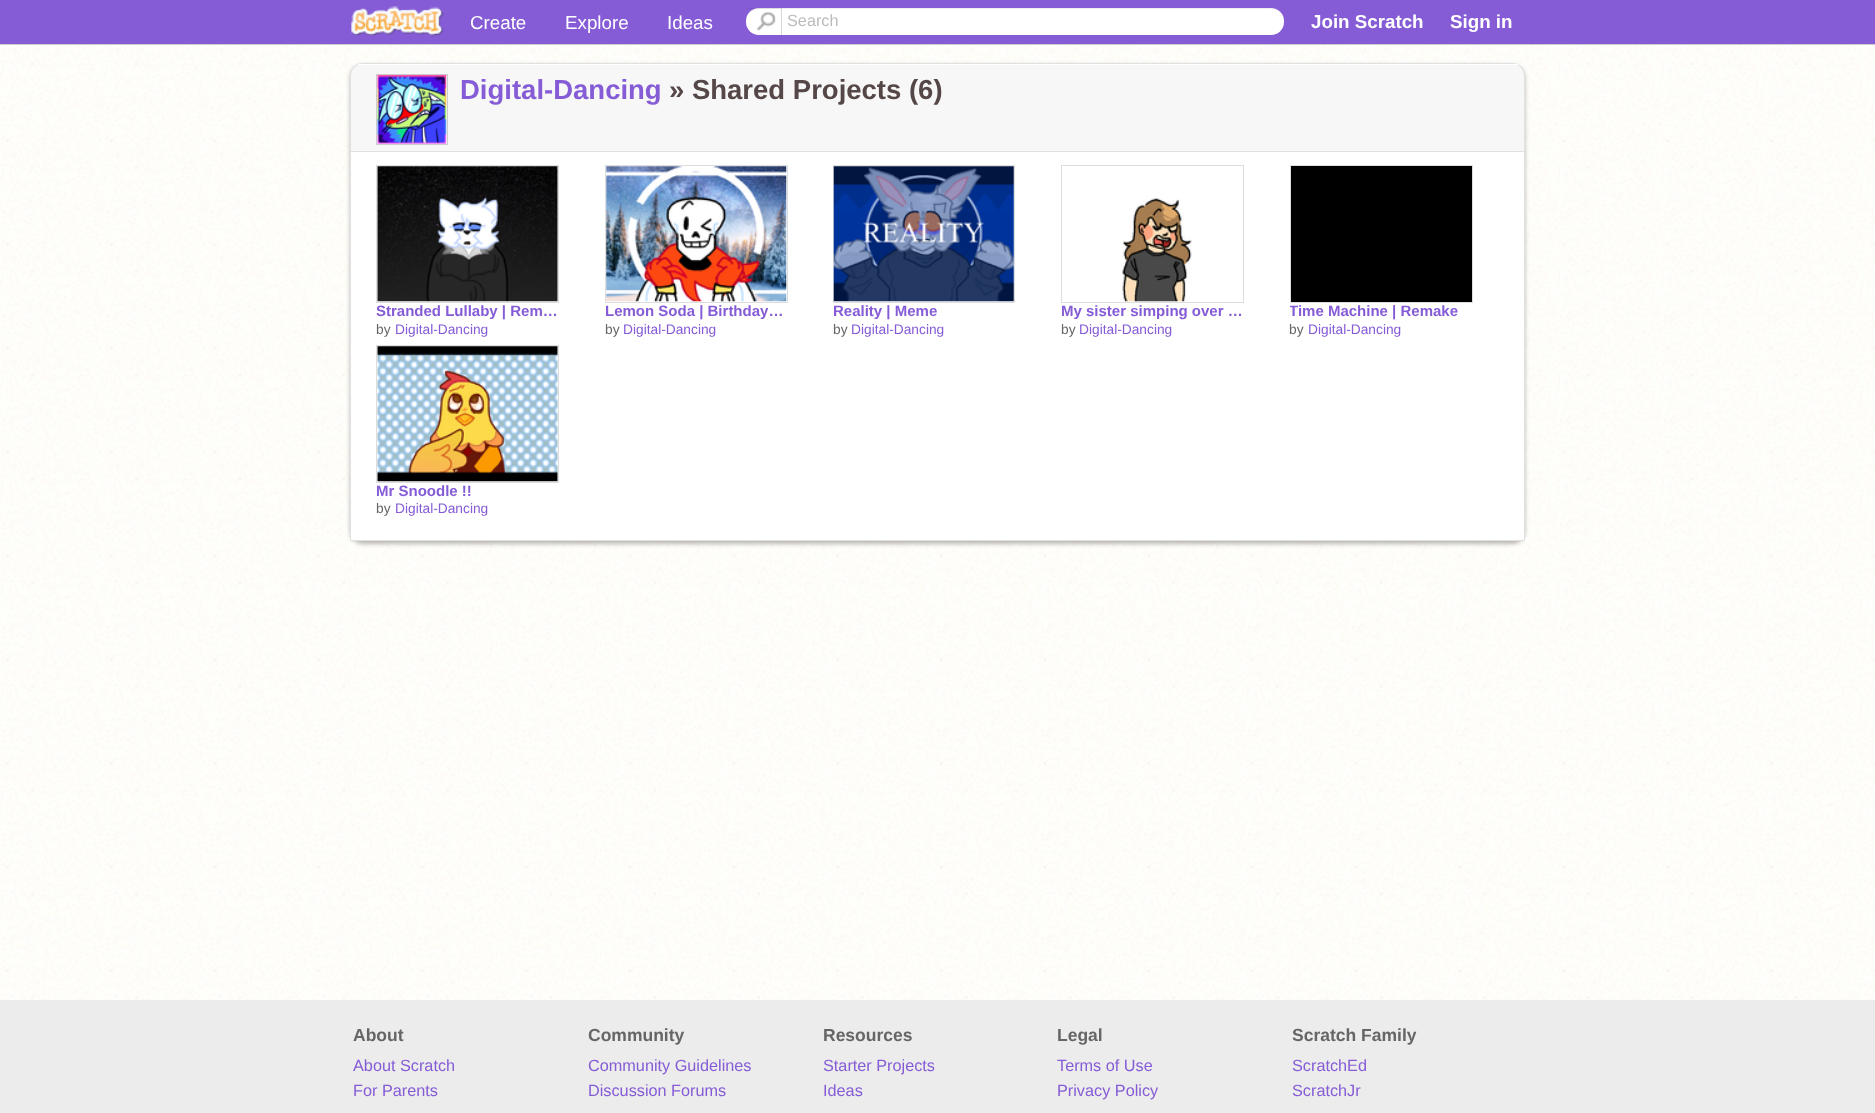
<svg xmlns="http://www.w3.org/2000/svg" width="1875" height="1113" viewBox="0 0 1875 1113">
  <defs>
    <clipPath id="clip1"><rect x="1290" y="303" width="183" height="17"/></clipPath>
  </defs>
  <rect width="100%" height="100%" fill="rgb(255,255,255)"/>
  <image x="0" y="44" width="1875" height="956" href="pic1.png"/>
  <rect x="0" y="1" width="1875" height="44" fill="rgb(204,204,204)" filter="blur(0.5px)"/>
  <rect x="0" y="0" width="1875" height="44" fill="rgb(133,92,214)"/>
  <image x="351" y="6" width="93" height="31" href="pic2.png"/>
  <g font-family="Liberation Sans" font-size="18.75" fill="rgb(255,255,255)">
    <text x="470" y="29">Create</text>
    <text x="565" y="29">Explore</text>
    <text x="667" y="29">Ideas</text>
  </g>
  <rect x="746" y="8" width="538" height="27" rx="13" fill="rgb(255,255,255)"/>
  <path d="M759 9H1271C1278 9 1284 14 1284 21C1284 14 1278 8 1271 8H759C752 8 746 14 746 21C746 14 752 9 759 9Z" fill="rgba(0,0,0,0.07)"/>
  <image x="757" y="12" width="19" height="19" href="pic3.png"/>
  <rect x="746" y="8" width="35" height="1" fill="rgba(0,0,0,0.06)"/>
  <rect x="781" y="8" width="1" height="27" fill="rgba(204,204,204,0.8)"/>
  <text x="787" y="26" font-family="Liberation Sans" font-size="16.25" fill="rgb(187,187,187)">Search</text>
  <g font-family="Liberation Sans" font-size="18.75" font-weight="bold" fill="rgb(255,255,255)">
    <text x="1311" y="28">Join Scratch</text>
    <text x="1450" y="28">Sign in</text>
  </g>
  <rect x="350" y="65" width="1175" height="479" rx="13" fill="rgba(34,25,25,0.3)" filter="blur(2px)"/>
  <path d="M363 63.5H1512C1519 63.5 1524.5 69 1524.5 76V540.5H350.5V76C350.5 69 356 63.5 363 63.5Z" fill="rgb(247,247,247)" stroke="rgb(224,224,224)"/>
  <rect x="358" y="64" width="1160" height="1" fill="rgb(255,255,255)"/>
  <rect x="376.5" y="74.5" width="71" height="70" fill="rgb(255,255,255)" stroke="rgb(204,204,204)"/>
  <image x="377" y="75" width="70" height="69" href="pic4.png"/>
  <text x="460" y="99" font-family="Liberation Sans" font-size="27.5" font-weight="bold" fill="rgb(133,92,214)">Digital-Dancing</text>
  <text x="669" y="99" font-family="Liberation Sans" font-size="27.5" font-weight="bold" fill="rgb(85,71,71)">» Shared Projects (6)</text>
  <rect x="351" y="152" width="1173" height="388" fill="rgb(255,255,255)"/>
  <rect x="351" y="151" width="1173" height="1" fill="rgb(224,224,224)"/>
  <rect x="376.5" y="165.5" width="182" height="137" fill="none" stroke="rgb(221,221,221)"/>
  <image x="377" y="166" width="181" height="136" href="pic5.png"/>
  <text x="376" y="316" font-family="Liberation Sans" font-size="15" font-weight="bold" fill="rgb(133,92,214)">Stranded Lullaby | Rem…</text>
  <text x="376" y="334" font-family="Liberation Sans" font-size="13.75" fill="rgb(102,102,102)">by</text>
  <text x="395" y="334" font-family="Liberation Sans" font-size="13.75" fill="rgb(133,92,214)">Digital-Dancing</text>
  <rect x="605.5" y="165.5" width="182" height="137" fill="none" stroke="rgb(221,221,221)"/>
  <image x="606" y="166" width="181" height="136" href="pic6.png"/>
  <text x="605" y="316" font-family="Liberation Sans" font-size="15" font-weight="bold" fill="rgb(133,92,214)">Lemon Soda | Birthday…</text>
  <text x="605" y="334" font-family="Liberation Sans" font-size="13.75" fill="rgb(102,102,102)">by</text>
  <text x="623" y="334" font-family="Liberation Sans" font-size="13.75" fill="rgb(133,92,214)">Digital-Dancing</text>
  <rect x="833.5" y="165.5" width="181" height="137" fill="none" stroke="rgb(221,221,221)"/>
  <image x="833" y="166" width="181" height="136" href="pic7.png"/>
  <text x="833" y="316" font-family="Liberation Sans" font-size="15" font-weight="bold" fill="rgb(133,92,214)">Reality | Meme</text>
  <text x="833" y="334" font-family="Liberation Sans" font-size="13.75" fill="rgb(102,102,102)">by</text>
  <text x="851" y="334" font-family="Liberation Sans" font-size="13.75" fill="rgb(133,92,214)">Digital-Dancing</text>
  <rect x="1061.5" y="165.5" width="182" height="137" fill="none" stroke="rgb(221,221,221)"/>
  <image x="1122" y="198" width="70" height="104" href="pic8.png"/>
  <text x="1061" y="316" font-family="Liberation Sans" font-size="15" font-weight="bold" fill="rgb(133,92,214)">My sister simping over …</text>
  <text x="1061" y="334" font-family="Liberation Sans" font-size="13.75" fill="rgb(102,102,102)">by</text>
  <text x="1079" y="334" font-family="Liberation Sans" font-size="13.75" fill="rgb(133,92,214)">Digital-Dancing</text>
  <rect x="1290.5" y="165.5" width="182" height="137" fill="none" stroke="rgb(221,221,221)"/>
  <rect x="1291" y="166" width="181" height="136" fill="rgb(0,0,0)"/>
  <g clip-path="url(#clip1)">
    <text x="1289" y="316" font-family="Liberation Sans" font-size="15" font-weight="bold" fill="rgb(133,92,214)">Time Machine | Remake</text>
  </g>
  <text x="1289" y="334" font-family="Liberation Sans" font-size="13.75" fill="rgb(102,102,102)">by</text>
  <text x="1308" y="334" font-family="Liberation Sans" font-size="13.75" fill="rgb(133,92,214)">Digital-Dancing</text>
  <rect x="376.5" y="345.5" width="182" height="137" fill="none" stroke="rgb(221,221,221)"/>
  <image x="377" y="346" width="181" height="136" href="pic9.png"/>
  <text x="376" y="496" font-family="Liberation Sans" font-size="15" font-weight="bold" fill="rgb(133,92,214)">Mr Snoodle !!</text>
  <text x="376" y="513" font-family="Liberation Sans" font-size="13.75" fill="rgb(102,102,102)">by</text>
  <text x="395" y="513" font-family="Liberation Sans" font-size="13.75" fill="rgb(133,92,214)">Digital-Dancing</text>
  <rect x="0" y="1000" width="1875" height="113" fill="rgb(236,236,236)"/>
  <text x="353" y="1041" font-family="Liberation Sans" font-size="17.5" font-weight="bold" fill="rgb(102,102,102)">About</text>
  <g font-family="Liberation Sans" font-size="16.25" fill="rgb(133,92,214)">
    <text>
      <tspan x="353" y="1071">About Scratch</tspan>
      <tspan x="353" y="1096">For Parents</tspan>
    </text>
  </g>
  <text x="588" y="1041" font-family="Liberation Sans" font-size="17.5" font-weight="bold" fill="rgb(102,102,102)">Community</text>
  <g font-family="Liberation Sans" font-size="16.25" fill="rgb(133,92,214)">
    <text>
      <tspan x="588" y="1071">Community Guidelines</tspan>
      <tspan x="588" y="1096">Discussion Forums</tspan>
    </text>
  </g>
  <text x="823" y="1041" font-family="Liberation Sans" font-size="17.5" font-weight="bold" fill="rgb(102,102,102)">Resources</text>
  <g font-family="Liberation Sans" font-size="16.25" fill="rgb(133,92,214)">
    <text>
      <tspan x="823" y="1071">Starter Projects</tspan>
      <tspan x="823" y="1096">Ideas</tspan>
    </text>
  </g>
  <text x="1057" y="1041" font-family="Liberation Sans" font-size="17.5" font-weight="bold" fill="rgb(102,102,102)">Legal</text>
  <g font-family="Liberation Sans" font-size="16.25" fill="rgb(133,92,214)">
    <text>
      <tspan x="1057" y="1071">Terms of Use</tspan>
      <tspan x="1057" y="1096">Privacy Policy</tspan>
    </text>
  </g>
  <text x="1292" y="1041" font-family="Liberation Sans" font-size="17.5" font-weight="bold" fill="rgb(102,102,102)">Scratch Family</text>
  <g font-family="Liberation Sans" font-size="16.25" fill="rgb(133,92,214)">
    <text>
      <tspan x="1292" y="1071">ScratchEd</tspan>
      <tspan x="1292" y="1096">ScratchJr</tspan>
    </text>
  </g>
</svg>
